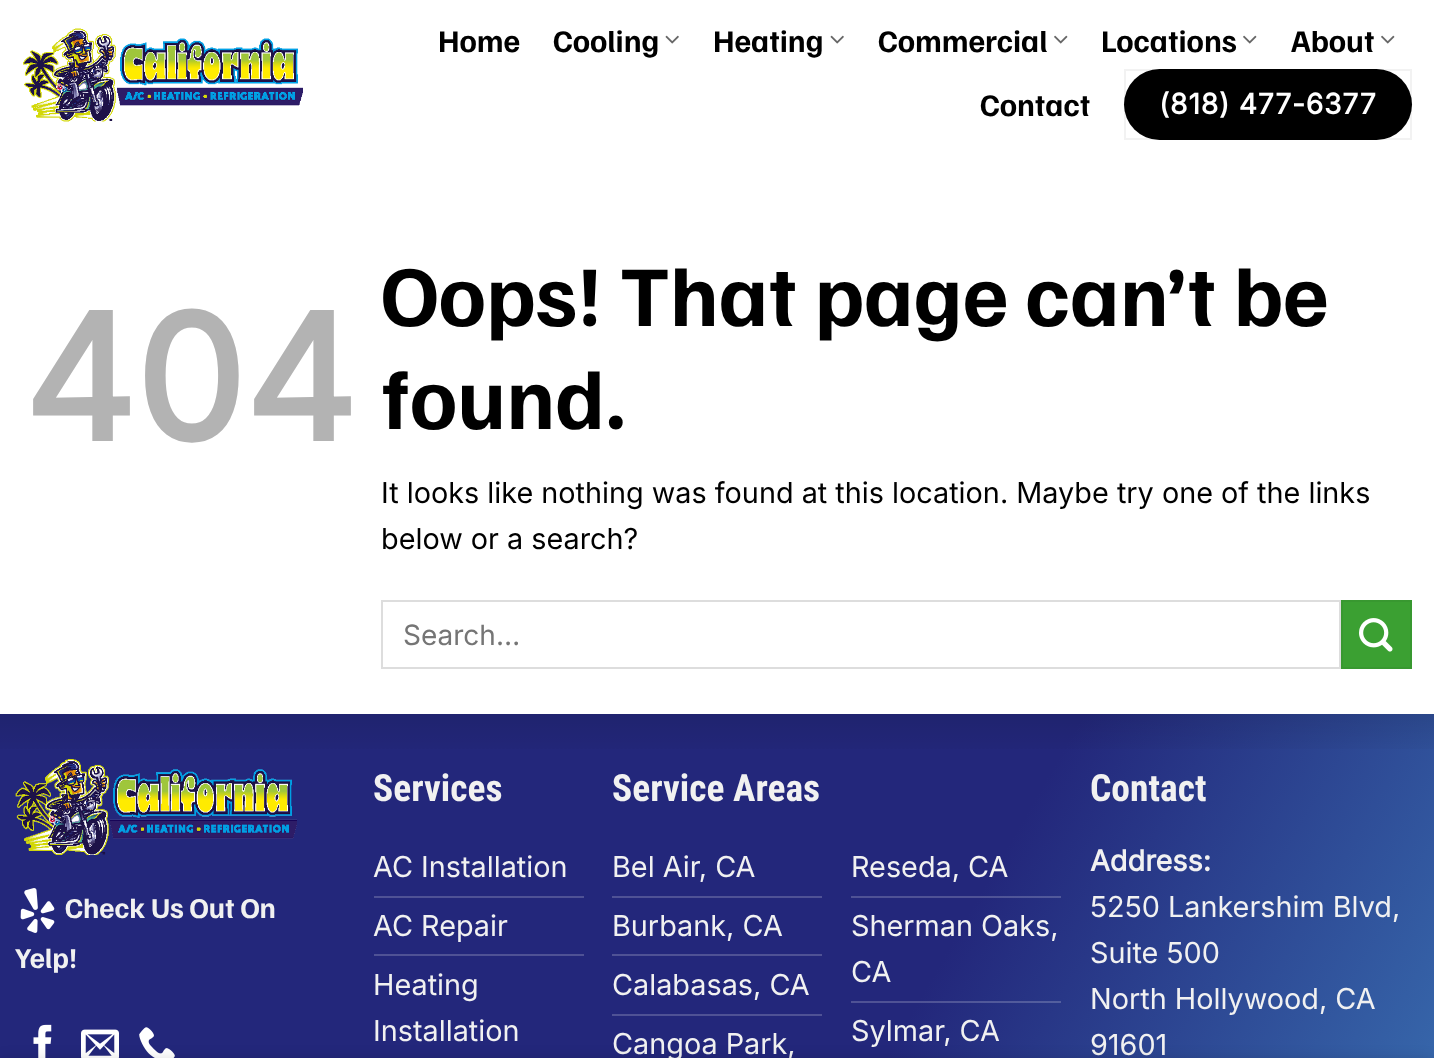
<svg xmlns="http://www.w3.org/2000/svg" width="1434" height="1058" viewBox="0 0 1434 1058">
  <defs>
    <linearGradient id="g1" gradientUnits="userSpaceOnUse" x1="-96" y1="881" x2="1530" y2="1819"><stop offset="0.5" stop-color="rgb(35,39,123)"/><stop offset="1" stop-color="rgb(73,162,215)"/></linearGradient>
    <linearGradient id="g2" gradientUnits="userSpaceOnUse" x1="-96" y1="881" x2="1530" y2="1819"><stop offset="0.5" stop-color="rgb(79,82,149)"/><stop offset="1" stop-color="rgb(109,181,223)"/></linearGradient>
    <linearGradient id="g3" gradientUnits="userSpaceOnUse" x1="717" y1="714" x2="717" y2="759"><stop offset="0" stop-color="rgb(0,0,0)" stop-opacity="0.1"/><stop offset="1" stop-color="rgb(0,0,0)" stop-opacity="0"/></linearGradient>
  </defs>
  <rect width="100%" height="100%" fill="rgb(255,255,255)"/>
  <image x="23" y="28" width="280" height="94" href="pic1.png"/>
  <g font-family="Familjen Grotesk" font-size="31.5" font-weight="bold" fill="rgb(0,0,0)">
    <text x="438" y="52">Home</text>
    <text x="553" y="52">Cooling</text>
  </g>
  <image x="665" y="35" width="14" height="9" href="pic2.png"/>
  <text x="713" y="52" font-family="Familjen Grotesk" font-size="31.5" font-weight="bold" fill="rgb(0,0,0)">Heating</text>
  <image x="830" y="35" width="14" height="9" href="pic2.png"/>
  <text x="878" y="52" font-family="Familjen Grotesk" font-size="31.5" font-weight="bold" fill="rgb(0,0,0)">Commercial</text>
  <image x="1054" y="35" width="14" height="9" href="pic3.png"/>
  <text x="1101" y="52" font-family="Familjen Grotesk" font-size="31.5" font-weight="bold" fill="rgb(0,0,0)">Locations</text>
  <image x="1243" y="35" width="14" height="9" href="pic3.png"/>
  <text x="1291" y="52" font-family="Familjen Grotesk" font-size="31.5" font-weight="bold" fill="rgb(0,0,0)">About</text>
  <image x="1381" y="35" width="14" height="9" href="pic3.png"/>
  <text x="980" y="116" font-family="Familjen Grotesk" font-size="31.5" font-weight="bold" fill="rgb(0,0,0)">Contact</text>
  <rect x="1124" y="69" width="288" height="71" rx="35.5" fill="rgb(0,0,0)"/>
  <rect x="1125" y="70" width="286" height="69" fill="none" stroke="rgba(0,0,0,0.05)" stroke-width="2"/>
  <text x="1159" y="114" font-family="Inter" font-size="28.25" font-weight="bold" letter-spacing="0.8" fill="rgb(255,255,255)">(818) 477-6377</text>
  <text x="23" y="441" font-family="Inter" font-size="173" font-weight="bold" fill="rgb(179,179,179)">404</text>
  <g font-family="Familjen Grotesk" font-size="86.4" font-weight="bold" fill="rgb(0,0,0)">
    <text>
      <tspan x="381" y="326">Oops! That page can’t be</tspan>
      <tspan x="381" y="429">found.</tspan>
    </text>
  </g>
  <g font-family="Inter" font-size="28.8" fill="rgb(0,0,0)">
    <text>
      <tspan x="381" y="503">It looks like nothing was found at this location. Maybe try one of the links</tspan>
      <tspan x="381" y="549">below or a search?</tspan>
    </text>
  </g>
  <rect x="382" y="601" width="958" height="67" fill="none" stroke="rgb(221,221,221)" stroke-width="2"/>
  <text x="403" y="645" font-family="Inter" font-size="28" fill="rgb(117,117,117)">Search…</text>
  <rect x="1342" y="601" width="69" height="67" fill="rgb(59,160,50)" stroke="rgb(56,152,48)" stroke-width="2"/>
  <image x="1359" y="618" width="34" height="34" href="pic4.png"/>
  <rect x="0" y="714" width="1434" height="344" fill="url(#g1)"/>
  <rect x="851" y="1001" width="210" height="2" fill="url(#g2)"/>
  <rect x="851" y="896" width="210" height="2" fill="url(#g2)"/>
  <rect x="0" y="714" width="1434" height="35" fill="url(#g3)"/>
  <image x="15" y="759" width="282" height="96" href="pic5.png"/>
  <image x="20" y="888" width="35" height="45" href="pic6.png"/>
  <g font-family="Familjen Grotesk" font-size="28.8" font-weight="bold" fill="rgb(241,241,241)">
    <text x="65" y="918">Check Us Out On</text>
    <text x="15" y="968">Yelp!</text>
  </g>
  <image x="33" y="1024" width="19" height="34" href="pic7.png"/>
  <image x="81" y="1029" width="38" height="29" href="pic8.png"/>
  <image x="139" y="1027" width="36" height="31" href="pic9.png"/>
  <text x="373" y="801" font-family="Roboto Condensed" font-size="37.5" font-weight="bold" fill="rgb(241,241,241)">Services</text>
  <rect x="374" y="896" width="210" height="2" fill="rgb(79,82,149)"/>
  <text x="373" y="877" font-family="Inter" font-size="28.8" fill="rgb(241,241,241)">AC Installation</text>
  <rect x="374" y="954" width="210" height="2" fill="rgb(79,82,149)"/>
  <g font-family="Inter" font-size="28.8" fill="rgb(241,241,241)">
    <text x="373" y="936">AC Repair</text>
    <text>
      <tspan x="373" y="995">Heating</tspan>
      <tspan x="373" y="1041">Installation</tspan>
    </text>
  </g>
  <text x="612" y="801" font-family="Roboto Condensed" font-size="37.5" font-weight="bold" fill="rgb(241,241,241)">Service Areas</text>
  <rect x="612" y="896" width="210" height="2" fill="rgb(79,82,149)"/>
  <text x="612" y="877" font-family="Inter" font-size="28.8" fill="rgb(241,241,241)">Bel Air, CA</text>
  <rect x="612" y="954" width="210" height="2" fill="rgb(79,82,149)"/>
  <text x="612" y="936" font-family="Inter" font-size="28.8" fill="rgb(241,241,241)">Burbank, CA</text>
  <rect x="612" y="1014" width="210" height="2" fill="rgb(79,82,149)"/>
  <g font-family="Inter" font-size="28.8" fill="rgb(241,241,241)">
    <text x="612" y="995">Calabasas, CA</text>
    <text x="612" y="1054">Cangoa Park,</text>
    <text x="851" y="877">Reseda, CA</text>
    <text>
      <tspan x="851" y="936">Sherman Oaks,</tspan>
      <tspan x="851" y="982">CA</tspan>
    </text>
    <text x="851" y="1041">Sylmar, CA</text>
  </g>
  <text x="1090" y="801" font-family="Roboto Condensed" font-size="37.5" font-weight="bold" fill="rgb(241,241,241)">Contact</text>
  <text x="1090" y="871" font-family="Inter" font-size="28.8" font-weight="bold" fill="rgb(241,241,241)">Address:</text>
  <g font-family="Inter" font-size="28.8" fill="rgb(241,241,241)">
    <text>
      <tspan x="1090" y="917">5250 Lankershim Blvd,</tspan>
      <tspan x="1090" y="963">Suite 500</tspan>
      <tspan x="1090" y="1009">North Hollywood, CA</tspan>
      <tspan x="1090" y="1055">91601</tspan>
    </text>
  </g>
  <rect x="0" y="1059" width="1434" height="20" fill="rgba(0,0,0,0.14)" filter="blur(7px)"/>
</svg>
